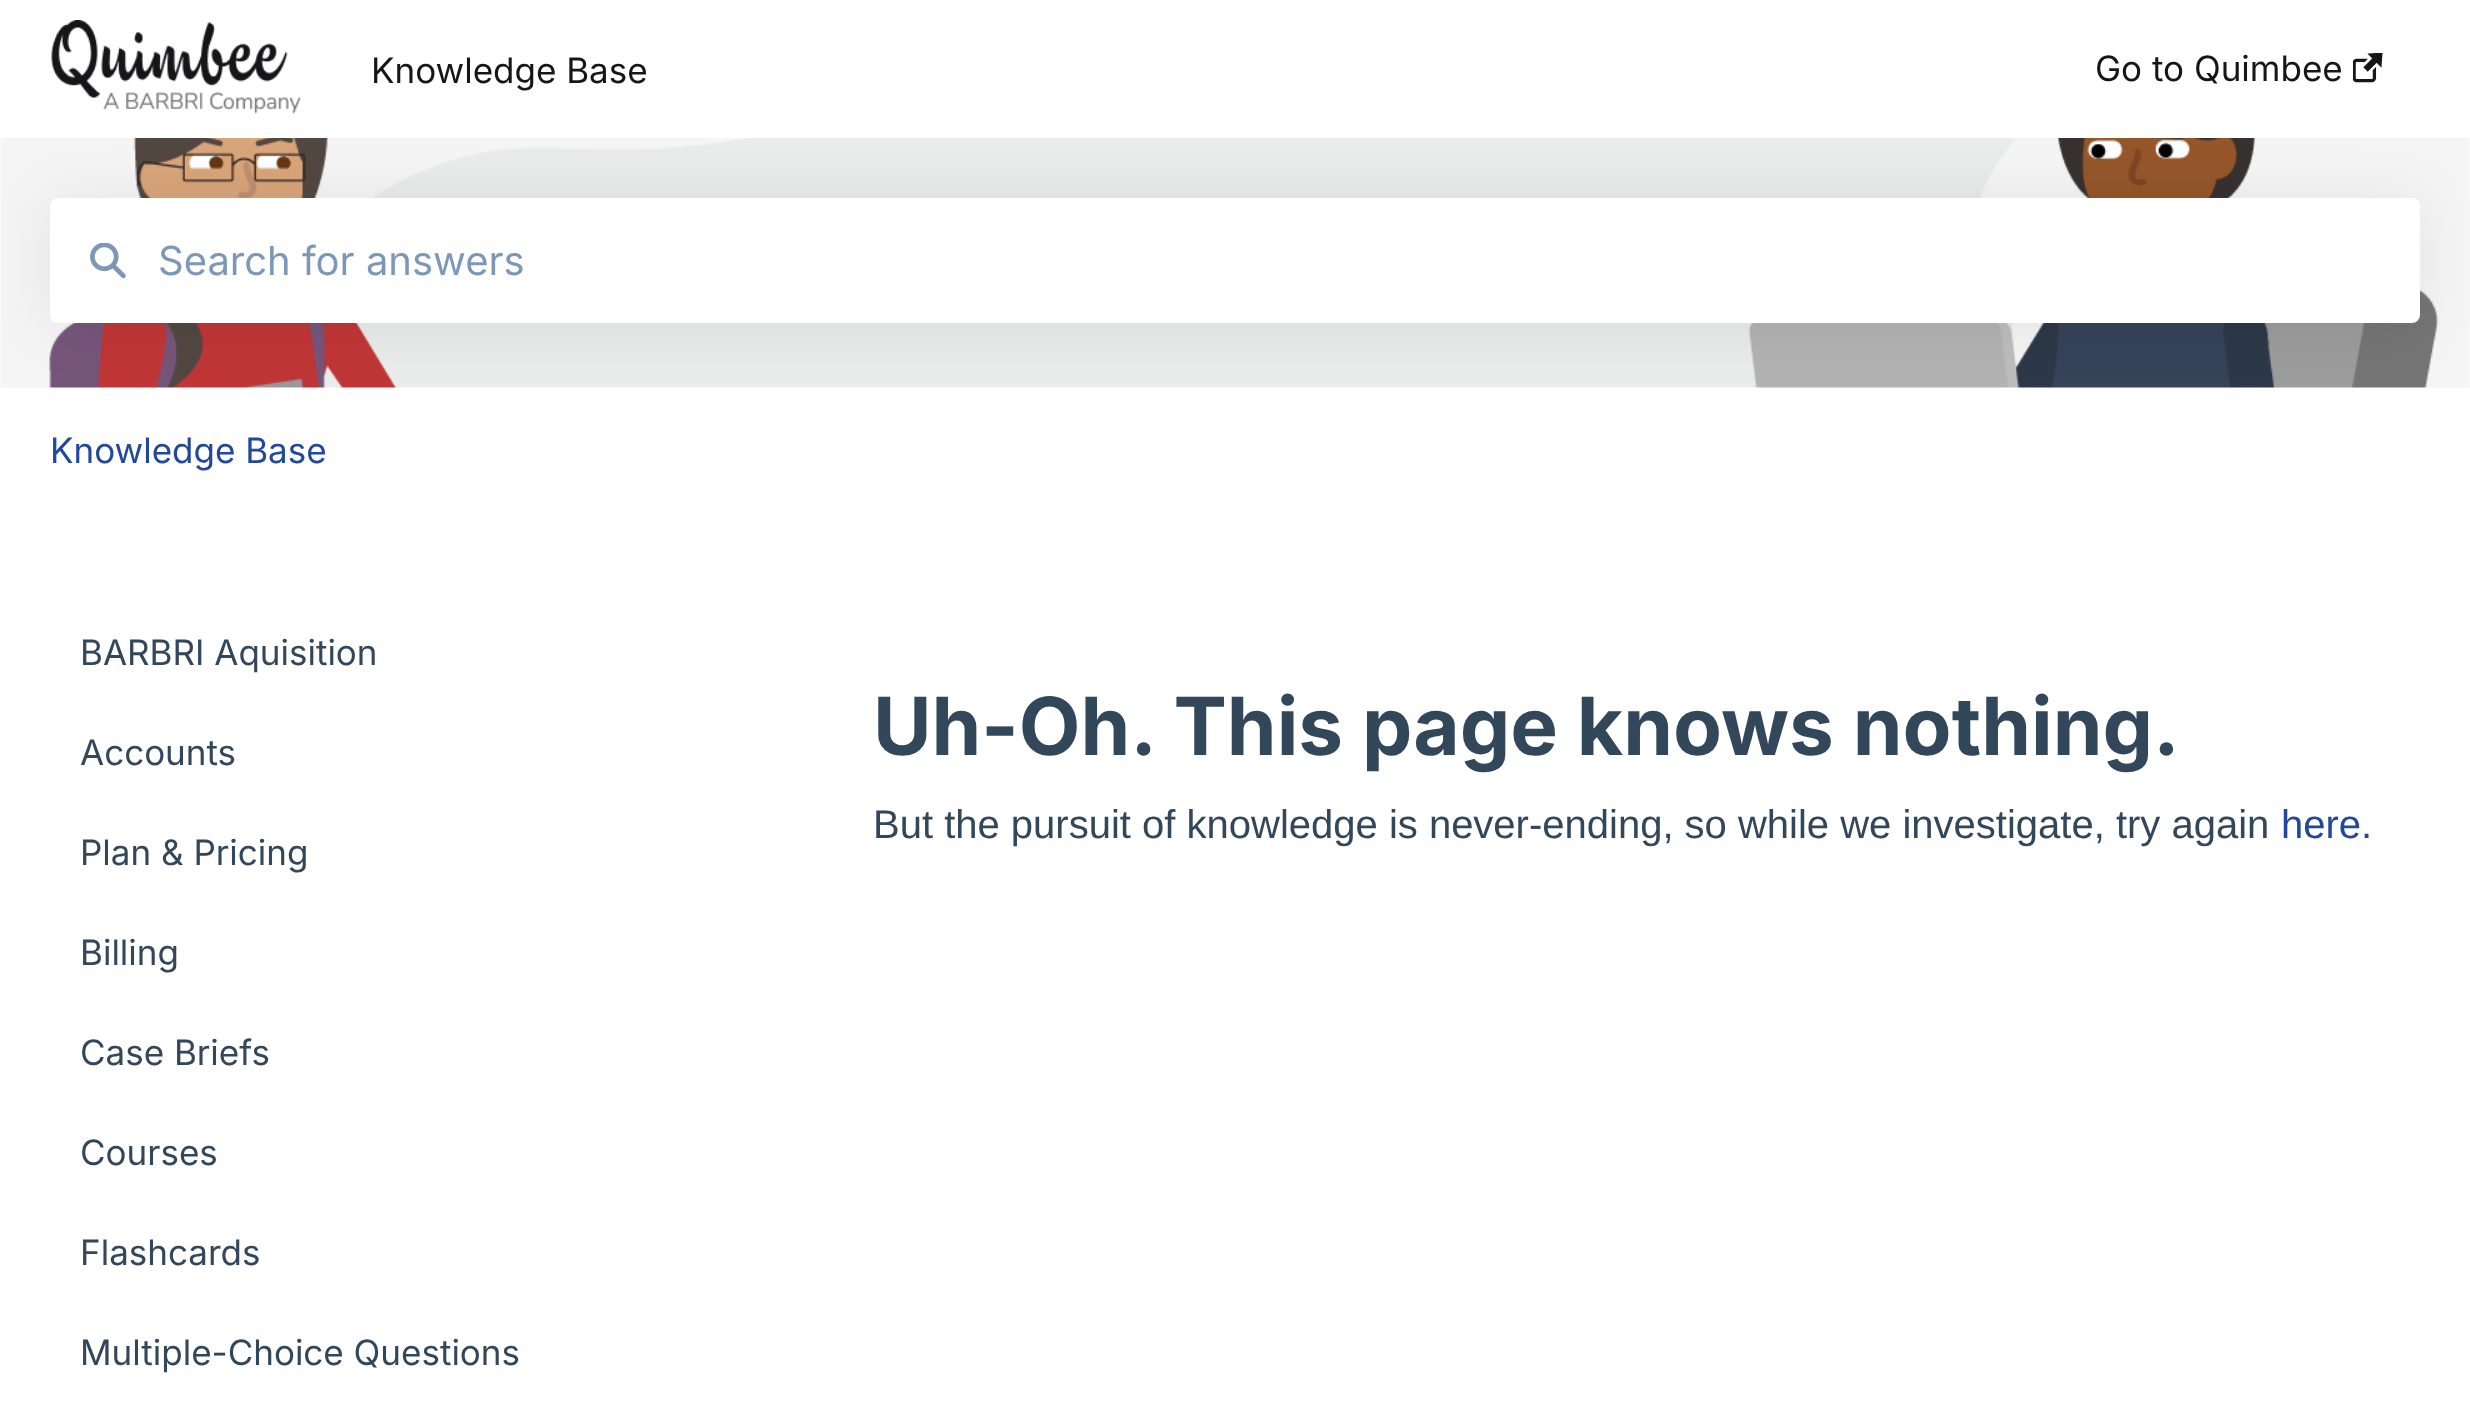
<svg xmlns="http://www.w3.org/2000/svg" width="2470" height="1402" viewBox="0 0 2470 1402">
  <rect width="100%" height="100%" fill="rgb(255,255,255)"/>
  <image x="0" y="138" width="2470" height="250" href="pic3.png"/>
  <rect x="50" y="200" width="2370" height="125" rx="8" fill="rgba(0,0,0,0.08)" filter="blur(30px)"/>
  <image x="51" y="20" width="250" height="94" href="pic1.png"/>
  <g font-family="Inter" font-size="35" fill="rgb(22,22,25)">
    <text x="371" y="83">Knowledge Base</text>
    <text x="2095" y="81">Go to Quimbee</text>
  </g>
  <image x="2353" y="53" width="30" height="30" href="pic2.png"/>
  <rect x="50" y="198" width="2370" height="125" rx="8" fill="rgb(255,255,255)"/>
  <image x="90" y="243" width="36" height="36" href="pic4.png"/>
  <text x="158" y="275" font-family="Inter" font-size="40" fill="rgb(124,152,182)">Search for answers</text>
  <text x="50" y="463" font-family="Inter" font-size="35" fill="rgb(34,72,155)">Knowledge Base</text>
  <g font-family="Inter" font-size="35" fill="rgb(51,71,91)">
    <text x="80" y="665">BARBRI Aquisition</text>
    <text x="80" y="765">Accounts</text>
    <text x="80" y="865">Plan &amp; Pricing</text>
    <text x="80" y="965">Billing</text>
    <text x="80" y="1065">Case Briefs</text>
    <text x="80" y="1165">Courses</text>
    <text x="80" y="1265">Flashcards</text>
    <text x="80" y="1365">Multiple-Choice Questions</text>
  </g>
  <text x="873" y="755" font-family="Inter" font-size="80" font-weight="bold" fill="rgb(51,71,91)">Uh-Oh. This page knows nothing.</text>
  <text x="873" y="838" font-family="Liberation Sans" font-size="40" fill="rgb(51,71,91)">But the pursuit of knowledge is never-ending, so while we investigate, try again</text>
  <text x="2281" y="838" font-family="Liberation Sans" font-size="40" fill="rgb(34,72,155)">here.</text>
</svg>
